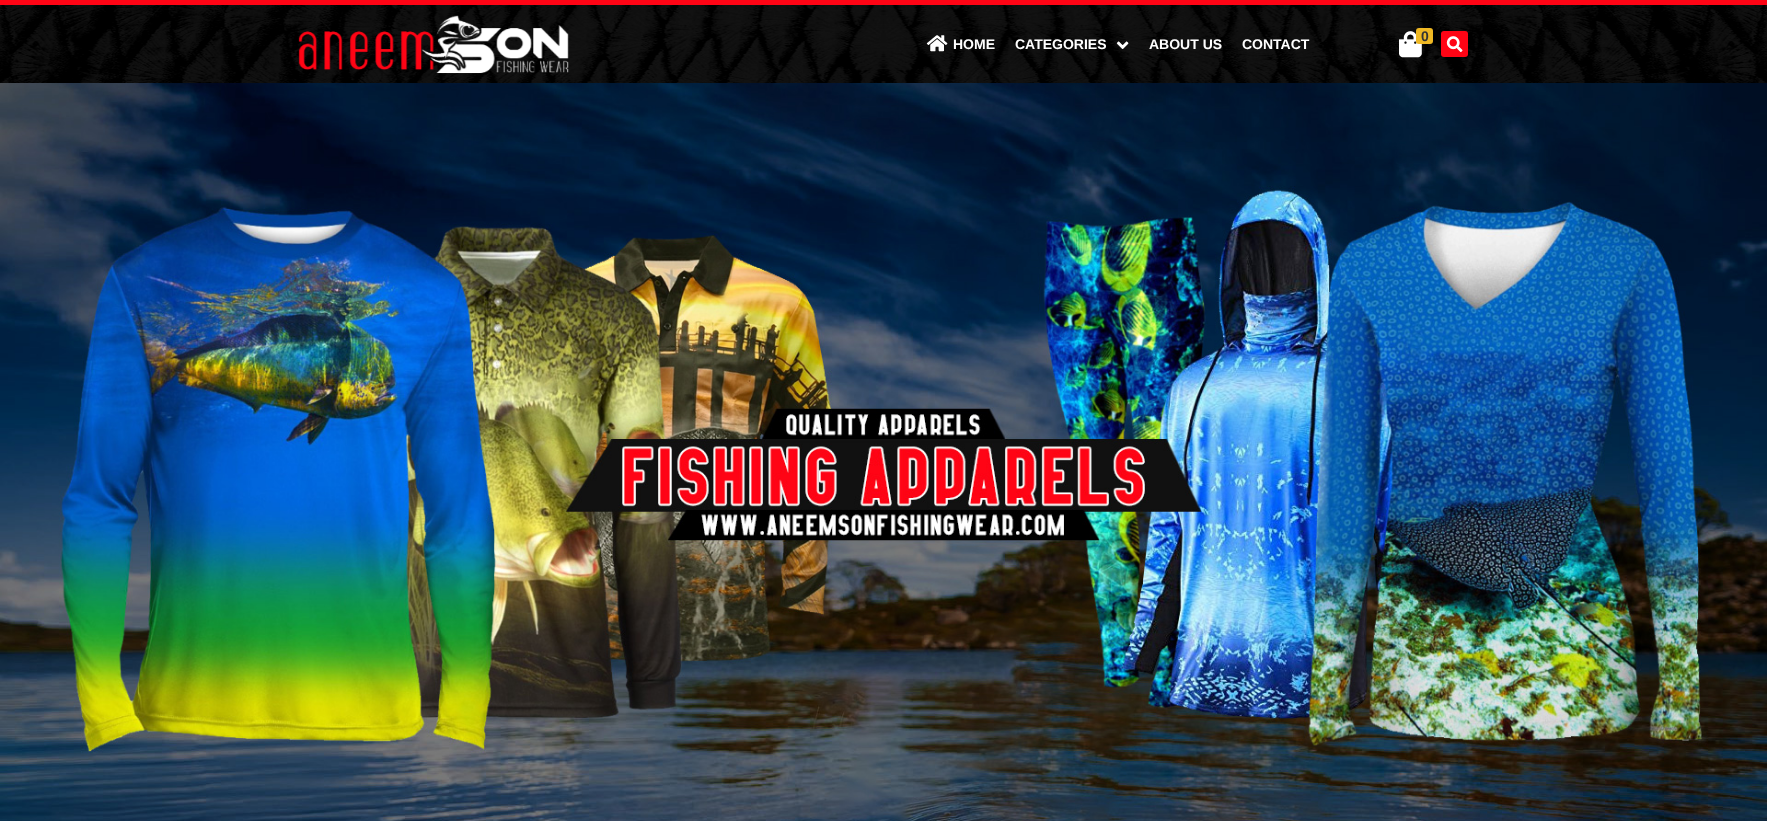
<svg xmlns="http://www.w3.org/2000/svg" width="1767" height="821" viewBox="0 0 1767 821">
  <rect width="100%" height="100%" fill="rgb(255,255,255)"/>
  <image x="0" y="5" width="1767" height="78" href="pic1.png"/>
  <rect x="0" y="0" width="1767" height="5" fill="rgb(255,4,21)"/>
  <image x="298" y="15" width="271" height="59" href="pic2.png"/>
  <image x="1399" y="31" width="23" height="27" href="pic3.png"/>
  <rect x="1416" y="28" width="17" height="16" rx="3" fill="rgb(239,184,35)"/>
  <text x="1421" y="41" font-family="Liberation Sans" font-size="14" font-weight="bold" fill="rgb(51,51,51)">0</text>
  <rect x="1441" y="31" width="27" height="26" rx="3" fill="rgb(255,4,21)"/>
  <image x="1446" y="36" width="17" height="16" href="pic4.png"/>
  <image x="926" y="35" width="22" height="17" href="pic5.png"/>
  <g font-family="Liberation Sans" font-size="14" font-weight="bold" fill="rgb(255,255,255)">
    <text x="953" y="49">HOME</text>
    <text x="1015" y="49">CATEGORIES</text>
  </g>
  <image x="1116" y="41" width="13" height="8" href="pic6.png"/>
  <g font-family="Liberation Sans" font-size="14" font-weight="bold" fill="rgb(255,255,255)">
    <text x="1149" y="49">ABOUT US</text>
    <text x="1242" y="49">CONTACT</text>
  </g>
  <image x="0" y="83" width="1767" height="738" href="pic7.png"/>
</svg>
